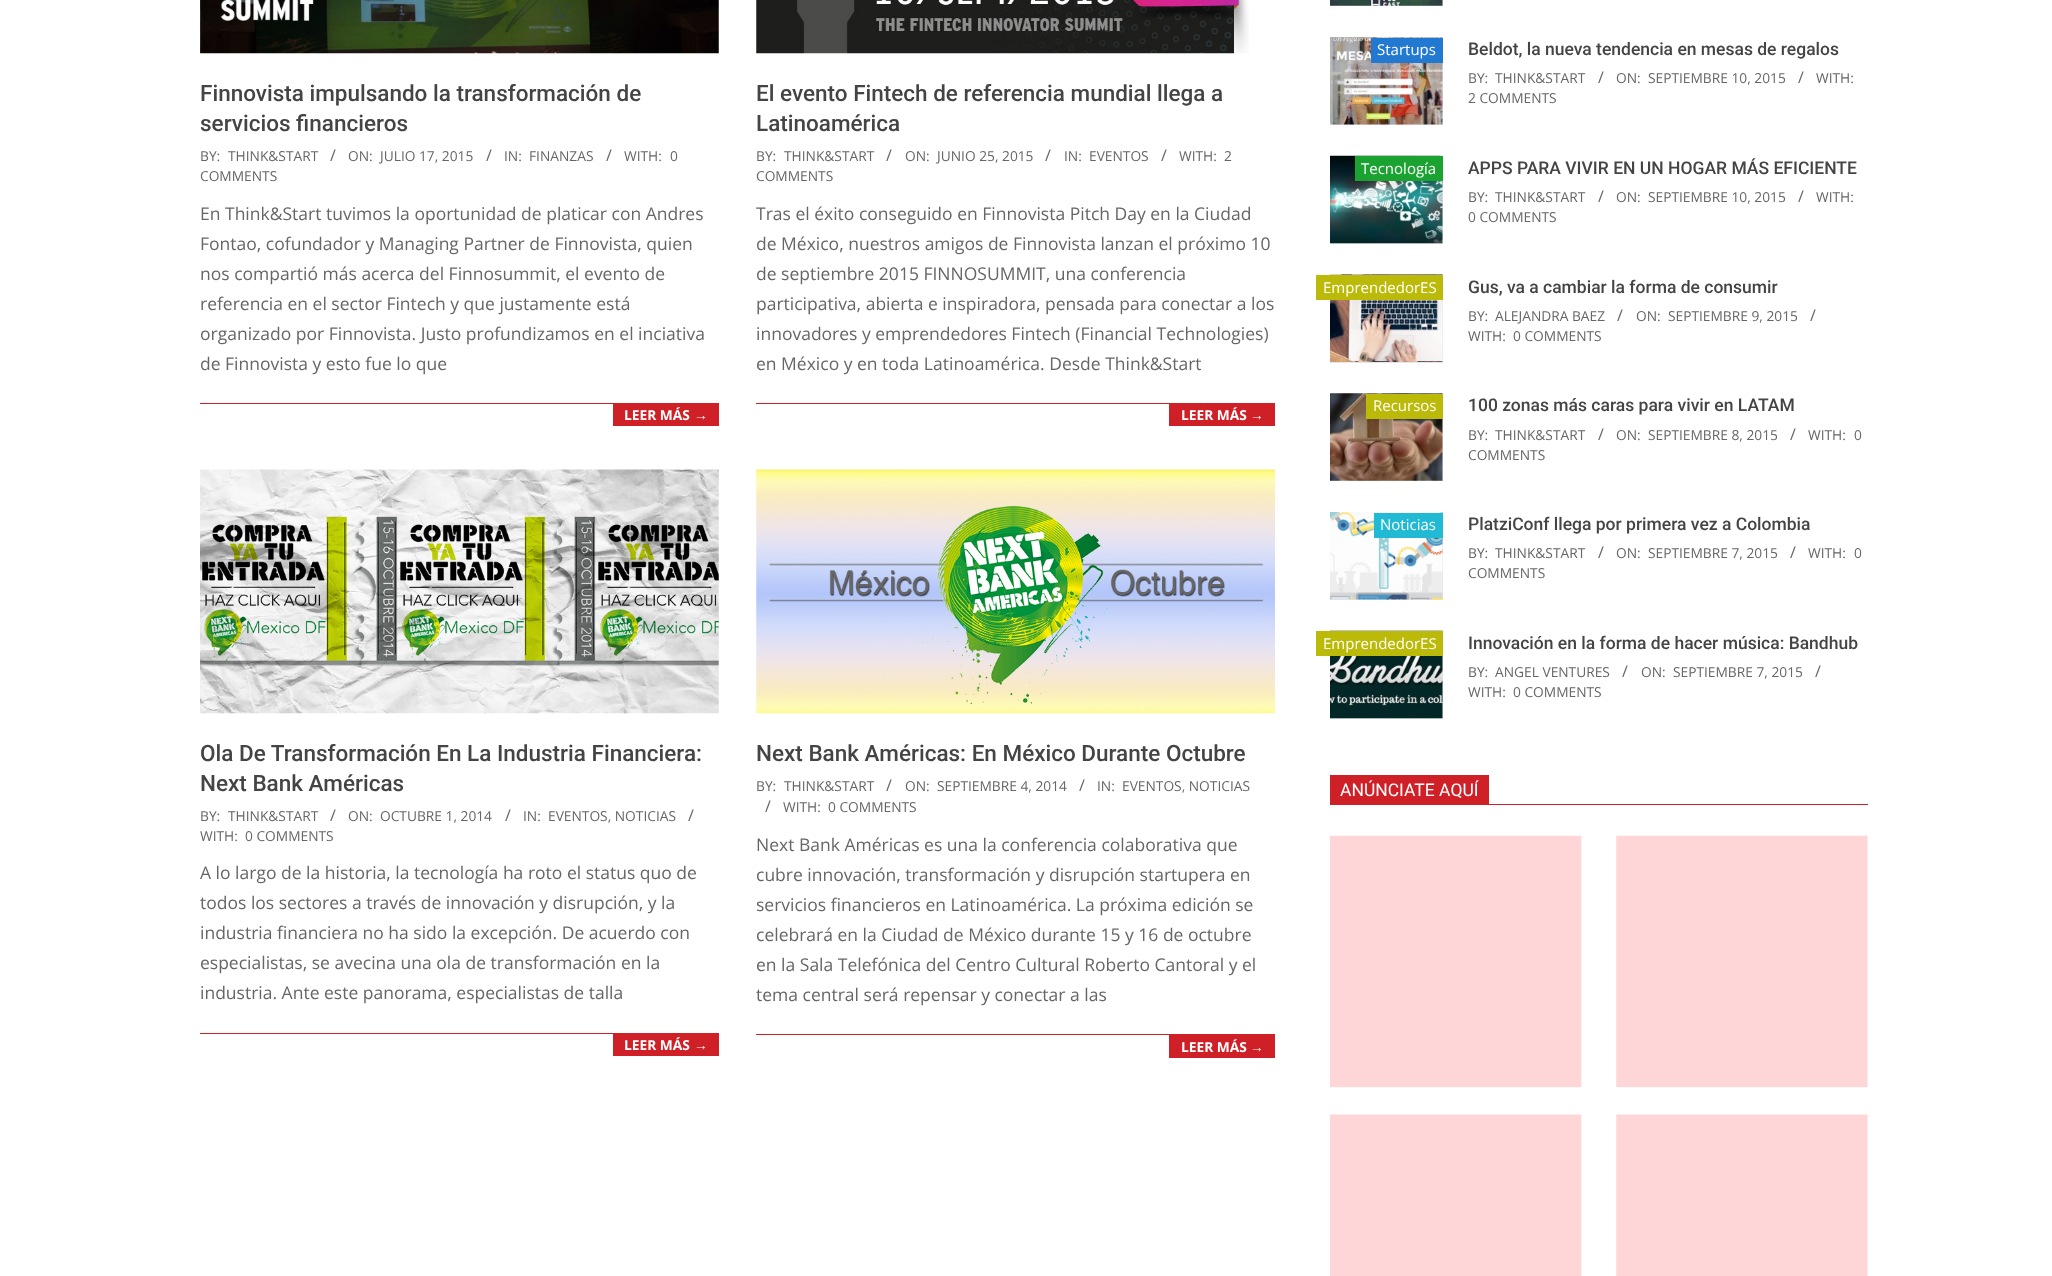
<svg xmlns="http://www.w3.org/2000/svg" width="2052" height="1276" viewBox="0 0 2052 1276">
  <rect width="100%" height="100%" fill="rgb(255,255,255)"/>
  <image x="200" y="0" width="519" height="54" href="pic1.png"/>
  <g font-family="Roboto" font-size="22.5" font-weight="500" fill="rgb(68,68,68)">
    <text>
      <tspan x="200" y="101">Finnovista impulsando la transformación de</tspan>
      <tspan x="200" y="131">servicios financieros</tspan>
    </text>
  </g>
  <g font-family="Open Sans" font-size="13.75" fill="rgb(102,102,102)">
    <text x="200" y="161">BY:</text>
    <text x="228" y="161">THINK&amp;START</text>
  </g>
  <text x="330" y="161" font-family="Open Sans" font-size="16" fill="rgb(102,102,102)">/</text>
  <g font-family="Open Sans" font-size="13.75" fill="rgb(102,102,102)">
    <text x="348" y="161">ON:</text>
    <text x="380" y="161">JULIO 17, 2015</text>
  </g>
  <text x="486" y="161" font-family="Open Sans" font-size="16" fill="rgb(102,102,102)">/</text>
  <g font-family="Open Sans" font-size="13.75" fill="rgb(102,102,102)">
    <text x="504" y="161">IN:</text>
    <text x="529" y="161">FINANZAS</text>
  </g>
  <text x="606" y="161" font-family="Open Sans" font-size="16" fill="rgb(102,102,102)">/</text>
  <g font-family="Open Sans" font-size="13.75" fill="rgb(102,102,102)">
    <text x="624" y="161">WITH:</text>
    <text x="670" y="161">0</text>
    <text x="200" y="181">COMMENTS</text>
  </g>
  <g font-family="Open Sans" font-size="17.5" fill="rgb(102,102,102)">
    <text>
      <tspan x="200" y="220">En Think&amp;Start tuvimos la oportunidad de platicar con Andres</tspan>
      <tspan x="200" y="250">Fontao, cofundador y Managing Partner de Finnovista, quien</tspan>
      <tspan x="200" y="280">nos compartió más acerca del Finnosummit, el evento de</tspan>
      <tspan x="200" y="310">referencia en el sector Fintech y que justamente está</tspan>
      <tspan x="200" y="340">organizado por Finnovista. Justo profundizamos en el inciativa</tspan>
      <tspan x="200" y="370">de Finnovista y esto fue lo que</tspan>
    </text>
  </g>
  <rect x="200" y="403" width="519" height="1" fill="rgb(207,32,39)"/>
  <rect x="613" y="404" width="106" height="22" fill="rgb(207,32,39)"/>
  <text x="624" y="420" font-family="Open Sans" font-size="13.75" font-weight="bold" fill="rgb(255,255,255)">LEER MÁS</text>
  <text x="694" y="420" font-family="Liberation Sans" font-size="13.75" font-weight="bold" fill="rgb(255,255,255)">→</text>
  <image x="756" y="0" width="493" height="54" href="pic2.png"/>
  <g font-family="Roboto" font-size="22.5" font-weight="500" fill="rgb(68,68,68)">
    <text>
      <tspan x="756" y="101">El evento Fintech de referencia mundial llega a</tspan>
      <tspan x="756" y="131">Latinoamérica</tspan>
    </text>
  </g>
  <g font-family="Open Sans" font-size="13.75" fill="rgb(102,102,102)">
    <text x="756" y="161">BY:</text>
    <text x="784" y="161">THINK&amp;START</text>
  </g>
  <text x="886" y="161" font-family="Open Sans" font-size="16" fill="rgb(102,102,102)">/</text>
  <g font-family="Open Sans" font-size="13.75" fill="rgb(102,102,102)">
    <text x="905" y="161">ON:</text>
    <text x="937" y="161">JUNIO 25, 2015</text>
  </g>
  <text x="1045" y="161" font-family="Open Sans" font-size="16" fill="rgb(102,102,102)">/</text>
  <g font-family="Open Sans" font-size="13.75" fill="rgb(102,102,102)">
    <text x="1064" y="161">IN:</text>
    <text x="1089" y="161">EVENTOS</text>
  </g>
  <text x="1161" y="161" font-family="Open Sans" font-size="16" fill="rgb(102,102,102)">/</text>
  <g font-family="Open Sans" font-size="13.75" fill="rgb(102,102,102)">
    <text x="1179" y="161">WITH:</text>
    <text x="1224" y="161">2</text>
    <text x="756" y="181">COMMENTS</text>
  </g>
  <g font-family="Open Sans" font-size="17.5" fill="rgb(102,102,102)">
    <text>
      <tspan x="756" y="220">Tras el éxito conseguido en Finnovista Pitch Day en la Ciudad</tspan>
      <tspan x="756" y="250">de México, nuestros amigos de Finnovista lanzan el próximo 10</tspan>
      <tspan x="756" y="280">de septiembre 2015 FINNOSUMMIT, una conferencia</tspan>
      <tspan x="756" y="310">participativa, abierta e inspiradora, pensada para conectar a los</tspan>
      <tspan x="756" y="340">innovadores y emprendedores Fintech (Financial Technologies)</tspan>
      <tspan x="756" y="370">en México y en toda Latinoamérica. Desde Think&amp;Start</tspan>
    </text>
  </g>
  <rect x="756" y="403" width="519" height="1" fill="rgb(207,32,39)"/>
  <rect x="1169" y="404" width="106" height="22" fill="rgb(207,32,39)"/>
  <text x="1181" y="420" font-family="Open Sans" font-size="13.75" font-weight="bold" fill="rgb(255,255,255)">LEER MÁS</text>
  <text x="1250" y="420" font-family="Liberation Sans" font-size="13.75" font-weight="bold" fill="rgb(255,255,255)">→</text>
  <image x="200" y="469" width="519" height="245" href="pic3.png"/>
  <g font-family="Roboto" font-size="22.5" font-weight="500" fill="rgb(68,68,68)">
    <text>
      <tspan x="200" y="761">Ola De Transformación En La Industria Financiera:</tspan>
      <tspan x="200" y="791">Next Bank Américas</tspan>
    </text>
  </g>
  <g font-family="Open Sans" font-size="13.75" fill="rgb(102,102,102)">
    <text x="200" y="821">BY:</text>
    <text x="228" y="821">THINK&amp;START</text>
  </g>
  <text x="330" y="821" font-family="Open Sans" font-size="16" fill="rgb(102,102,102)">/</text>
  <g font-family="Open Sans" font-size="13.75" fill="rgb(102,102,102)">
    <text x="348" y="821">ON:</text>
    <text x="380" y="821">OCTUBRE 1, 2014</text>
  </g>
  <text x="505" y="821" font-family="Open Sans" font-size="16" fill="rgb(102,102,102)">/</text>
  <g font-family="Open Sans" font-size="13.75" fill="rgb(102,102,102)">
    <text x="523" y="821">IN:</text>
    <text x="548" y="821">EVENTOS, NOTICIAS</text>
  </g>
  <text x="688" y="821" font-family="Open Sans" font-size="16" fill="rgb(102,102,102)">/</text>
  <g font-family="Open Sans" font-size="13.75" fill="rgb(102,102,102)">
    <text x="200" y="841">WITH:</text>
    <text x="245" y="841">0 COMMENTS</text>
  </g>
  <g font-family="Open Sans" font-size="17.5" fill="rgb(102,102,102)">
    <text>
      <tspan x="200" y="879">A lo largo de la historia, la tecnología ha roto el status quo de</tspan>
      <tspan x="200" y="909">todos los sectores a través de innovación y disrupción, y la</tspan>
      <tspan x="200" y="939">industria financiera no ha sido la excepción. De acuerdo con</tspan>
      <tspan x="200" y="969">especialistas, se avecina una ola de transformación en la</tspan>
      <tspan x="200" y="999">industria. Ante este panorama, especialistas de talla</tspan>
    </text>
  </g>
  <rect x="200" y="1033" width="519" height="1" fill="rgb(207,32,39)"/>
  <rect x="613" y="1034" width="106" height="22" fill="rgb(207,32,39)"/>
  <text x="624" y="1050" font-family="Open Sans" font-size="13.75" font-weight="bold" fill="rgb(255,255,255)">LEER MÁS</text>
  <text x="694" y="1050" font-family="Liberation Sans" font-size="13.75" font-weight="bold" fill="rgb(255,255,255)">→</text>
  <image x="756" y="469" width="519" height="245" href="pic4.png"/>
  <text x="756" y="761" font-family="Roboto" font-size="22.5" font-weight="500" fill="rgb(68,68,68)">Next Bank Américas: En México Durante Octubre</text>
  <g font-family="Open Sans" font-size="13.75" fill="rgb(102,102,102)">
    <text x="756" y="791">BY:</text>
    <text x="784" y="791">THINK&amp;START</text>
  </g>
  <text x="886" y="791" font-family="Open Sans" font-size="16" fill="rgb(102,102,102)">/</text>
  <g font-family="Open Sans" font-size="13.75" fill="rgb(102,102,102)">
    <text x="905" y="791">ON:</text>
    <text x="937" y="791">SEPTIEMBRE 4, 2014</text>
  </g>
  <text x="1079" y="791" font-family="Open Sans" font-size="16" fill="rgb(102,102,102)">/</text>
  <g font-family="Open Sans" font-size="13.75" fill="rgb(102,102,102)">
    <text x="1097" y="791">IN:</text>
    <text x="1122" y="791">EVENTOS, NOTICIAS</text>
  </g>
  <text x="765" y="812" font-family="Open Sans" font-size="16" fill="rgb(102,102,102)">/</text>
  <g font-family="Open Sans" font-size="13.75" fill="rgb(102,102,102)">
    <text x="783" y="812">WITH:</text>
    <text x="828" y="812">0 COMMENTS</text>
  </g>
  <g font-family="Open Sans" font-size="17.5" fill="rgb(102,102,102)">
    <text>
      <tspan x="756" y="851">Next Bank Américas es una la conferencia colaborativa que</tspan>
      <tspan x="756" y="881">cubre innovación, transformación y disrupción startupera en</tspan>
      <tspan x="756" y="911">servicios financieros en Latinoamérica. La próxima edición se</tspan>
      <tspan x="756" y="941">celebrará en la Ciudad de México durante 15 y 16 de octubre</tspan>
      <tspan x="756" y="971">en la Sala Telefónica del Centro Cultural Roberto Cantoral y el</tspan>
      <tspan x="756" y="1001">tema central será repensar y conectar a las</tspan>
    </text>
  </g>
  <rect x="756" y="1034" width="519" height="1" fill="rgb(207,32,39)"/>
  <rect x="1169" y="1035" width="106" height="23" fill="rgb(207,32,39)"/>
  <text x="1181" y="1052" font-family="Open Sans" font-size="13.75" font-weight="bold" fill="rgb(255,255,255)">LEER MÁS</text>
  <text x="1250" y="1052" font-family="Liberation Sans" font-size="13.75" font-weight="bold" fill="rgb(255,255,255)">→</text>
  <rect x="1330" y="0" width="113" height="6" fill="rgb(230,230,230)"/>
  <image x="1330" y="0" width="113" height="6" href="pic5.png"/>
  <rect x="1330" y="63" width="113" height="62" fill="rgb(230,230,230)"/>
  <image x="1330" y="37" width="113" height="88" href="pic6.png"/>
  <rect x="1371" y="38" width="72" height="25" fill="rgb(34,121,210)"/>
  <text x="1377" y="55" font-family="Open Sans" font-size="15" fill="rgb(255,255,255)">Startups</text>
  <text x="1468" y="55" font-family="Roboto" font-size="17.5" font-weight="500" fill="rgb(68,68,68)">Beldot, la nueva tendencia en mesas de regalos</text>
  <g font-family="Open Sans" font-size="13.75" fill="rgb(102,102,102)">
    <text x="1468" y="83">BY:</text>
    <text x="1495" y="83">THINK&amp;START</text>
  </g>
  <text x="1598" y="83" font-family="Open Sans" font-size="16" fill="rgb(102,102,102)">/</text>
  <g font-family="Open Sans" font-size="13.75" fill="rgb(102,102,102)">
    <text x="1616" y="83">ON:</text>
    <text x="1648" y="83">SEPTIEMBRE 10, 2015</text>
  </g>
  <text x="1798" y="83" font-family="Open Sans" font-size="16" fill="rgb(102,102,102)">/</text>
  <g font-family="Open Sans" font-size="13.75" fill="rgb(102,102,102)">
    <text x="1816" y="83">WITH:</text>
    <text x="1468" y="103">2 COMMENTS</text>
  </g>
  <rect x="1330" y="181" width="113" height="63" fill="rgb(230,230,230)"/>
  <image x="1330" y="155" width="113" height="89" href="pic7.png"/>
  <rect x="1355" y="156" width="88" height="25" fill="rgb(26,163,49)"/>
  <text x="1361" y="174" font-family="Open Sans" font-size="15" fill="rgb(255,255,255)">Tecnología</text>
  <text x="1468" y="174" font-family="Roboto" font-size="17.5" font-weight="500" fill="rgb(68,68,68)">APPS PARA VIVIR EN UN HOGAR MÁS EFICIENTE</text>
  <g font-family="Open Sans" font-size="13.75" fill="rgb(102,102,102)">
    <text x="1468" y="202">BY:</text>
    <text x="1495" y="202">THINK&amp;START</text>
  </g>
  <text x="1598" y="202" font-family="Open Sans" font-size="16" fill="rgb(102,102,102)">/</text>
  <g font-family="Open Sans" font-size="13.75" fill="rgb(102,102,102)">
    <text x="1616" y="202">ON:</text>
    <text x="1648" y="202">SEPTIEMBRE 10, 2015</text>
  </g>
  <text x="1798" y="202" font-family="Open Sans" font-size="16" fill="rgb(102,102,102)">/</text>
  <g font-family="Open Sans" font-size="13.75" fill="rgb(102,102,102)">
    <text x="1816" y="202">WITH:</text>
    <text x="1468" y="222">0 COMMENTS</text>
  </g>
  <rect x="1330" y="300" width="113" height="63" fill="rgb(230,230,230)"/>
  <image x="1330" y="274" width="113" height="88" href="pic8.png"/>
  <rect x="1316" y="275" width="127" height="25" fill="rgb(188,186,8)"/>
  <text x="1323" y="293" font-family="Open Sans" font-size="15" fill="rgb(255,255,255)">EmprendedorES</text>
  <text x="1468" y="293" font-family="Roboto" font-size="17.5" font-weight="500" fill="rgb(68,68,68)">Gus, va a cambiar la forma de consumir</text>
  <g font-family="Open Sans" font-size="13.75" fill="rgb(102,102,102)">
    <text x="1468" y="321">BY:</text>
    <text x="1495" y="321">ALEJANDRA BAEZ</text>
  </g>
  <text x="1617" y="321" font-family="Open Sans" font-size="16" fill="rgb(102,102,102)">/</text>
  <g font-family="Open Sans" font-size="13.75" fill="rgb(102,102,102)">
    <text x="1636" y="321">ON:</text>
    <text x="1668" y="321">SEPTIEMBRE 9, 2015</text>
  </g>
  <text x="1810" y="321" font-family="Open Sans" font-size="16" fill="rgb(102,102,102)">/</text>
  <g font-family="Open Sans" font-size="13.75" fill="rgb(102,102,102)">
    <text x="1468" y="341">WITH:</text>
    <text x="1513" y="341">0 COMMENTS</text>
  </g>
  <rect x="1330" y="419" width="113" height="62" fill="rgb(230,230,230)"/>
  <image x="1330" y="393" width="113" height="88" href="pic9.png"/>
  <rect x="1366" y="394" width="77" height="25" fill="rgb(188,186,8)"/>
  <text x="1373" y="411" font-family="Open Sans" font-size="15" fill="rgb(255,255,255)">Recursos</text>
  <text x="1468" y="411" font-family="Roboto" font-size="17.5" font-weight="500" fill="rgb(68,68,68)">100 zonas más caras para vivir en LATAM</text>
  <g font-family="Open Sans" font-size="13.75" fill="rgb(102,102,102)">
    <text x="1468" y="440">BY:</text>
    <text x="1495" y="440">THINK&amp;START</text>
  </g>
  <text x="1598" y="440" font-family="Open Sans" font-size="16" fill="rgb(102,102,102)">/</text>
  <g font-family="Open Sans" font-size="13.75" fill="rgb(102,102,102)">
    <text x="1616" y="440">ON:</text>
    <text x="1648" y="440">SEPTIEMBRE 8, 2015</text>
  </g>
  <text x="1790" y="440" font-family="Open Sans" font-size="16" fill="rgb(102,102,102)">/</text>
  <g font-family="Open Sans" font-size="13.75" fill="rgb(102,102,102)">
    <text x="1808" y="440">WITH:</text>
    <text x="1854" y="440">0</text>
    <text x="1468" y="460">COMMENTS</text>
  </g>
  <rect x="1330" y="538" width="113" height="62" fill="rgb(230,230,230)"/>
  <image x="1330" y="512" width="113" height="88" href="pic10.png"/>
  <rect x="1374" y="513" width="69" height="25" fill="rgb(33,186,213)"/>
  <text x="1380" y="530" font-family="Open Sans" font-size="15" fill="rgb(255,255,255)">Noticias</text>
  <text x="1468" y="530" font-family="Roboto" font-size="17.5" font-weight="500" fill="rgb(68,68,68)">PlatziConf llega por primera vez a Colombia</text>
  <g font-family="Open Sans" font-size="13.75" fill="rgb(102,102,102)">
    <text x="1468" y="558">BY:</text>
    <text x="1495" y="558">THINK&amp;START</text>
  </g>
  <text x="1598" y="558" font-family="Open Sans" font-size="16" fill="rgb(102,102,102)">/</text>
  <g font-family="Open Sans" font-size="13.75" fill="rgb(102,102,102)">
    <text x="1616" y="558">ON:</text>
    <text x="1648" y="558">SEPTIEMBRE 7, 2015</text>
  </g>
  <text x="1790" y="558" font-family="Open Sans" font-size="16" fill="rgb(102,102,102)">/</text>
  <g font-family="Open Sans" font-size="13.75" fill="rgb(102,102,102)">
    <text x="1808" y="558">WITH:</text>
    <text x="1854" y="558">0</text>
    <text x="1468" y="578">COMMENTS</text>
  </g>
  <rect x="1330" y="656" width="113" height="63" fill="rgb(230,230,230)"/>
  <image x="1330" y="630" width="113" height="89" href="pic11.png"/>
  <rect x="1316" y="631" width="127" height="25" fill="rgb(188,186,8)"/>
  <text x="1323" y="649" font-family="Open Sans" font-size="15" fill="rgb(255,255,255)">EmprendedorES</text>
  <text x="1468" y="649" font-family="Roboto" font-size="17.5" font-weight="500" fill="rgb(68,68,68)">Innovación en la forma de hacer música: Bandhub</text>
  <g font-family="Open Sans" font-size="13.75" fill="rgb(102,102,102)">
    <text x="1468" y="677">BY:</text>
    <text x="1495" y="677">ANGEL VENTURES</text>
  </g>
  <text x="1622" y="677" font-family="Open Sans" font-size="16" fill="rgb(102,102,102)">/</text>
  <g font-family="Open Sans" font-size="13.75" fill="rgb(102,102,102)">
    <text x="1641" y="677">ON:</text>
    <text x="1673" y="677">SEPTIEMBRE 7, 2015</text>
  </g>
  <text x="1815" y="677" font-family="Open Sans" font-size="16" fill="rgb(102,102,102)">/</text>
  <g font-family="Open Sans" font-size="13.75" fill="rgb(102,102,102)">
    <text x="1468" y="697">WITH:</text>
    <text x="1513" y="697">0 COMMENTS</text>
  </g>
  <rect x="1330" y="775" width="159" height="29" fill="rgb(207,32,39)"/>
  <text x="1340" y="796" font-family="Roboto" font-size="17.5" fill="rgb(255,255,255)">ANÚNCIATE AQUÍ</text>
  <rect x="1330" y="804" width="538" height="1" fill="rgb(207,32,39)"/>
  <image x="1330" y="835" width="538" height="441" href="pic12.png"/>
</svg>
